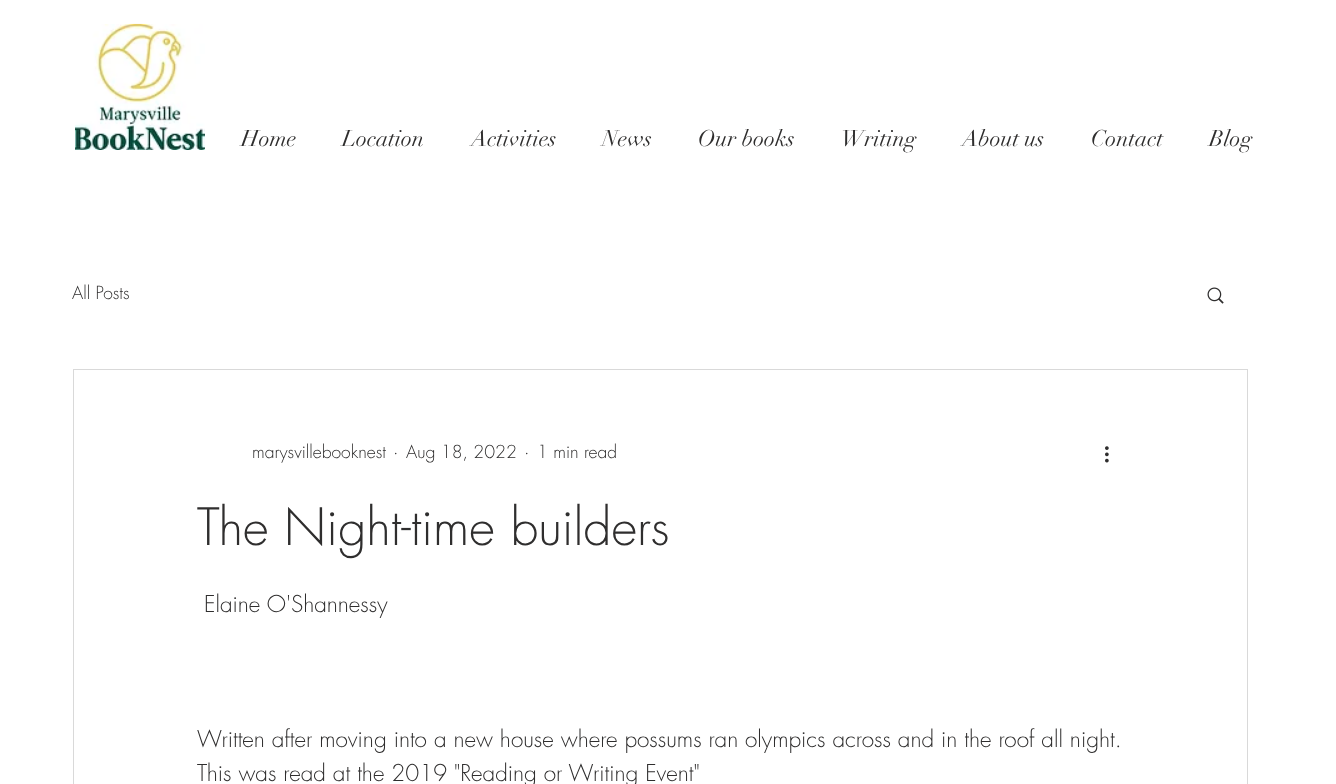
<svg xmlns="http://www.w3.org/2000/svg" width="1336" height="784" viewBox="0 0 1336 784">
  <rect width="100%" height="100%" fill="rgb(255,255,255)"/>
  <image x="75" y="23" width="130" height="127" href="pic1.png"/>
  <g font-family="didot" font-size="22.5" fill="rgb(47,46,46)">
    <text x="241" y="146">Home</text>
    <text x="342" y="146">Location</text>
    <text x="471" y="146">Activities</text>
    <text x="602" y="146">News</text>
    <text x="698" y="146">Our books</text>
    <text x="841" y="146">Writing</text>
    <text x="962" y="146">About us</text>
    <text x="1091" y="146">Contact</text>
    <text x="1209" y="146">Blog</text>
  </g>
  <text x="72" y="299" font-family="futura" font-size="17.5" font-weight="300" fill="rgb(47,46,46)">All Posts</text>
  <image x="1207" y="287" width="17" height="17" href="pic2.png"/>
  <rect x="73.5" y="369.5" width="1174" height="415" fill="none" stroke="rgb(217,217,217)"/>
  <g font-family="futura" font-size="17.5" font-weight="300" fill="rgb(47,46,46)">
    <text x="252" y="458">marysvillebooknest</text>
    <text x="393" y="458">·</text>
    <text x="406" y="458">Aug 18, 2022</text>
    <text x="524" y="458">·</text>
    <text x="537" y="458">1 min read</text>
  </g>
  <image x="1105" y="446" width="4" height="17" href="pic3.png"/>
  <text x="197" y="545" font-family="futura" font-size="50" font-weight="300" fill="rgb(47,46,46)">The Night-time builders</text>
  <g font-family="futura" font-size="22.5" font-weight="300" fill="rgb(47,46,46)">
    <text x="204" y="612">Elaine O'Shannessy</text>
    <text>
      <tspan x="197" y="747">Written after moving into a new house where possums ran olympics across and in the roof all night.</tspan>
      <tspan x="197" y="781">This was read at the 2019 "Reading or Writing Event"</tspan>
    </text>
  </g>
</svg>
